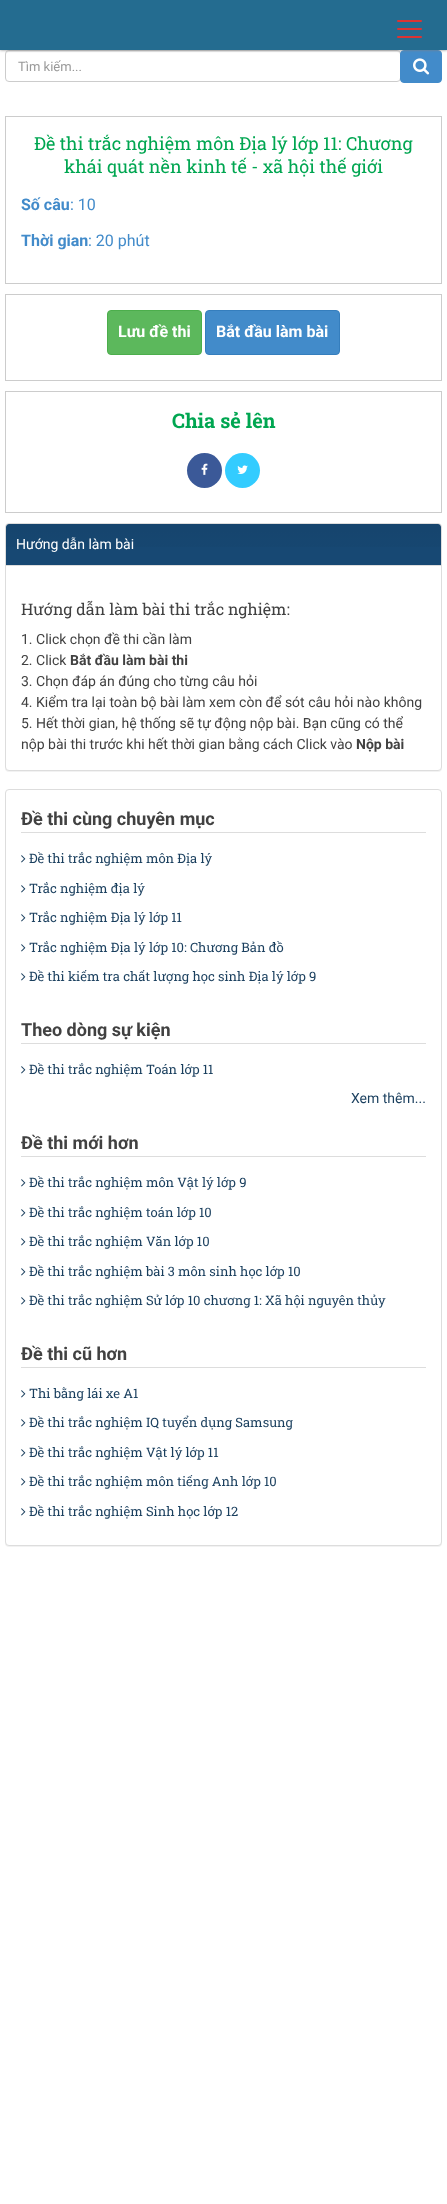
<svg xmlns="http://www.w3.org/2000/svg" width="447" height="2204" viewBox="0 0 447 2204">
  <defs>
    <linearGradient id="g1" gradientUnits="userSpaceOnUse" x1="224" y1="524" x2="224" y2="565"><stop offset="0" stop-color="rgb(0,0,0)" stop-opacity="0.05"/><stop offset="1" stop-color="rgb(0,0,0)" stop-opacity="0"/></linearGradient>
  </defs>
  <rect width="100%" height="100%" fill="rgb(255,255,255)"/>
  <path d="M9 52H397C399 52 400 53 400 55C400 53 399 51 397 51H9L7 52L6 55C6 53 7 52 9 52Z" fill="rgb(236,236,236)"/>
  <rect x="5.5" y="50.5" width="395" height="31" rx="3.5" fill="none" stroke="rgb(204,204,204)"/>
  <rect x="400.5" y="50.5" width="41" height="32" rx="3.5" fill="rgb(66,139,202)" stroke="rgb(66,139,202)"/>
  <rect x="0" y="0" width="447" height="50" fill="rgb(128,128,128)" filter="blur(1.5px)"/>
  <rect x="0" y="0" width="447" height="50" fill="rgb(36,108,144)"/>
  <rect x="397" y="20" width="25" height="2" rx="1" fill="rgb(220,51,51)"/>
  <rect x="397" y="28" width="25" height="2" rx="1" fill="rgb(220,51,51)"/>
  <rect x="397" y="36" width="25" height="2" rx="1" fill="rgb(220,51,51)"/>
  <text x="18" y="71" font-family="Roboto" font-size="13" fill="rgb(153,153,153)">Tìm kiếm...</text>
  <image x="413" y="58" width="17" height="17" href="pic1.png"/>
  <rect x="5.5" y="116.5" width="436" height="167" fill="none" stroke="rgb(204,204,204)"/>
  <g font-family="Roboto Slab" font-size="18" fill="rgb(0,166,81)">
    <text x="34" y="150">Đề thi trắc nghiệm môn Địa lý lớp 11: Chương</text>
    <text x="64" y="173">khái quát nền kinh tế - xã hội thế giới</text>
  </g>
  <text x="21" y="210" font-family="Roboto" font-size="16" font-weight="bold" fill="rgb(66,139,202)">Số câu</text>
  <text x="70" y="210" font-family="Roboto" font-size="16" fill="rgb(66,139,202)">: 10</text>
  <text x="21" y="246" font-family="Roboto" font-size="16" font-weight="bold" fill="rgb(66,139,202)">Thời gian</text>
  <text x="88" y="246" font-family="Roboto" font-size="16" fill="rgb(66,139,202)">: 20 phút</text>
  <rect x="5.5" y="294.5" width="436" height="86" fill="none" stroke="rgb(204,204,204)"/>
  <rect x="107.5" y="310.5" width="94" height="44" rx="3.5" fill="rgb(92,184,92)" stroke="rgb(76,174,76)"/>
  <text x="118" y="337" font-family="Roboto" font-size="16" font-weight="bold" fill="rgb(255,255,255)">Lưu đề thi</text>
  <rect x="205.5" y="310.5" width="134" height="44" rx="3.5" fill="rgb(66,139,202)" stroke="rgb(53,126,189)"/>
  <text x="216" y="337" font-family="Roboto" font-size="16" font-weight="bold" fill="rgb(255,255,255)">Bắt đầu làm bài</text>
  <rect x="5.5" y="391.5" width="436" height="121" fill="none" stroke="rgb(204,204,204)"/>
  <text x="172" y="428" font-family="Roboto Slab" font-size="20" font-weight="bold" fill="rgb(0,166,81)">Chia sẻ lên</text>
  <circle cx="204.5" cy="470.5" r="17.5" fill="rgb(59,89,152)"/>
  <image x="201" y="463" width="7" height="12" href="pic2.png"/>
  <circle cx="242.5" cy="470.5" r="17.5" fill="rgb(51,204,255)"/>
  <image x="237" y="465" width="11" height="9" href="pic3.png"/>
  <rect x="5" y="524" width="437" height="248" rx="4" fill="rgba(0,0,0,0.05)" filter="blur(0.5px)"/>
  <rect x="5.5" y="523.5" width="436" height="247" rx="3.5" fill="rgb(255,255,255)" stroke="rgb(221,221,221)"/>
  <path d="M9 524H438C439.5 524 441 525.5 441 527V566H6V527C6 525.5 7.5 524 9 524Z" fill="rgb(23,72,115)"/>
  <rect x="6" y="524" width="435" height="23" fill="url(#g1)"/>
  <rect x="6" y="565" width="435" height="1" fill="rgb(221,221,221)"/>
  <text x="16" y="549" font-family="Roboto" font-size="14" fill="rgb(255,255,255)">Hướng dẫn làm bài</text>
  <text x="21" y="615" font-family="Roboto Slab" font-size="16" fill="rgb(65,65,65)">Hướng dẫn làm bài thi trắc nghiệm:</text>
  <g font-family="Roboto" font-size="14" fill="rgb(65,65,65)">
    <text>
      <tspan x="21" y="644">1. Click chọn đề thi cần làm</tspan>
      <tspan x="21" y="665">2. Click</tspan>
    </text>
  </g>
  <text x="70" y="665" font-family="Roboto" font-size="14" font-weight="bold" fill="rgb(65,65,65)">Bắt đầu làm bài thi</text>
  <g font-family="Roboto" font-size="14" fill="rgb(65,65,65)">
    <text>
      <tspan x="21" y="686">3. Chọn đáp án đúng cho từng câu hỏi</tspan>
      <tspan x="21" y="707">4. Kiểm tra lại toàn bộ bài làm xem còn để sót câu hỏi nào không</tspan>
      <tspan x="21" y="728">5. Hết thời gian, hệ thống sẽ tự động nộp bài. Bạn cũng có thể</tspan>
      <tspan x="21" y="749">nộp bài thi trước khi hết thời gian bằng cách Click vào</tspan>
    </text>
  </g>
  <text x="356" y="749" font-family="Roboto" font-size="14" font-weight="bold" fill="rgb(65,65,65)">Nộp bài</text>
  <rect x="5" y="790" width="437" height="757" rx="4" fill="rgba(0,0,0,0.05)" filter="blur(0.5px)"/>
  <rect x="5.5" y="789.5" width="436" height="756" rx="3.5" fill="rgb(255,255,255)" stroke="rgb(221,221,221)"/>
  <rect x="21" y="832" width="405" height="1" fill="rgb(221,221,221)"/>
  <text x="21" y="825" font-family="Roboto" font-size="18" font-weight="bold" fill="rgb(65,65,65)">Đề thi cùng chuyên mục</text>
  <image x="21" y="855" width="5" height="8" href="pic4.png"/>
  <text x="29" y="863" font-family="Roboto Slab" font-size="13" fill="rgb(26,63,94)">Đề thi trắc nghiệm môn Địa lý</text>
  <image x="21" y="885" width="5" height="8" href="pic4.png"/>
  <text x="29" y="893" font-family="Roboto Slab" font-size="13" fill="rgb(26,63,94)">Trắc nghiệm địa lý</text>
  <image x="21" y="914" width="5" height="8" href="pic4.png"/>
  <text x="29" y="922" font-family="Roboto Slab" font-size="13" fill="rgb(26,63,94)">Trắc nghiệm Địa lý lớp 11</text>
  <image x="21" y="944" width="5" height="8" href="pic4.png"/>
  <text x="29" y="952" font-family="Roboto Slab" font-size="13" fill="rgb(26,63,94)">Trắc nghiệm Địa lý lớp 10: Chương Bản đồ</text>
  <image x="21" y="973" width="5" height="8" href="pic4.png"/>
  <text x="29" y="981" font-family="Roboto Slab" font-size="13" fill="rgb(26,63,94)">Đề thi kiếm tra chất lượng học sinh Địa lý lớp 9</text>
  <rect x="21" y="1043" width="405" height="1" fill="rgb(221,221,221)"/>
  <text x="21" y="1036" font-family="Roboto" font-size="18" font-weight="bold" fill="rgb(65,65,65)">Theo dòng sự kiện</text>
  <image x="21" y="1066" width="5" height="8" href="pic4.png"/>
  <text x="29" y="1074" font-family="Roboto Slab" font-size="13" fill="rgb(26,63,94)">Đề thi trắc nghiệm Toán lớp 11</text>
  <text x="351" y="1103" font-family="Roboto" font-size="14" fill="rgb(26,63,94)">Xem thêm...</text>
  <rect x="21" y="1156" width="405" height="1" fill="rgb(221,221,221)"/>
  <text x="21" y="1149" font-family="Roboto" font-size="18" font-weight="bold" fill="rgb(65,65,65)">Đề thi mới hơn</text>
  <image x="21" y="1179" width="5" height="8" href="pic4.png"/>
  <text x="29" y="1187" font-family="Roboto Slab" font-size="13" fill="rgb(26,63,94)">Đề thi trắc nghiệm môn Vật lý lớp 9</text>
  <image x="21" y="1209" width="5" height="8" href="pic4.png"/>
  <text x="29" y="1217" font-family="Roboto Slab" font-size="13" fill="rgb(26,63,94)">Đề thi trắc nghiệm toán lớp 10</text>
  <image x="21" y="1238" width="5" height="8" href="pic4.png"/>
  <text x="29" y="1246" font-family="Roboto Slab" font-size="13" fill="rgb(26,63,94)">Đề thi trắc nghiệm Văn lớp 10</text>
  <image x="21" y="1268" width="5" height="8" href="pic4.png"/>
  <text x="29" y="1276" font-family="Roboto Slab" font-size="13" fill="rgb(26,63,94)">Đề thi trắc nghiệm bài 3 môn sinh học lớp 10</text>
  <image x="21" y="1297" width="5" height="8" href="pic4.png"/>
  <text x="29" y="1305" font-family="Roboto Slab" font-size="13" fill="rgb(26,63,94)">Đề thi trắc nghiệm Sử lớp 10 chương 1: Xã hội nguyên thủy</text>
  <rect x="21" y="1367" width="405" height="1" fill="rgb(221,221,221)"/>
  <text x="21" y="1360" font-family="Roboto" font-size="18" font-weight="bold" fill="rgb(65,65,65)">Đề thi cũ hơn</text>
  <image x="21" y="1390" width="5" height="8" href="pic4.png"/>
  <text x="29" y="1398" font-family="Roboto Slab" font-size="13" fill="rgb(26,63,94)">Thi bằng lái xe A1</text>
  <image x="21" y="1419" width="5" height="8" href="pic4.png"/>
  <text x="29" y="1427" font-family="Roboto Slab" font-size="13" fill="rgb(26,63,94)">Đề thi trắc nghiệm IQ tuyển dụng Samsung</text>
  <image x="21" y="1449" width="5" height="8" href="pic4.png"/>
  <text x="29" y="1457" font-family="Roboto Slab" font-size="13" fill="rgb(26,63,94)">Đề thi trắc nghiệm Vật lý lớp 11</text>
  <image x="21" y="1478" width="5" height="8" href="pic4.png"/>
  <text x="29" y="1486" font-family="Roboto Slab" font-size="13" fill="rgb(26,63,94)">Đề thi trắc nghiệm môn tiếng Anh lớp 10</text>
  <image x="21" y="1508" width="5" height="8" href="pic4.png"/>
  <text x="29" y="1516" font-family="Roboto Slab" font-size="13" fill="rgb(26,63,94)">Đề thi trắc nghiệm Sinh học lớp 12</text>
</svg>
